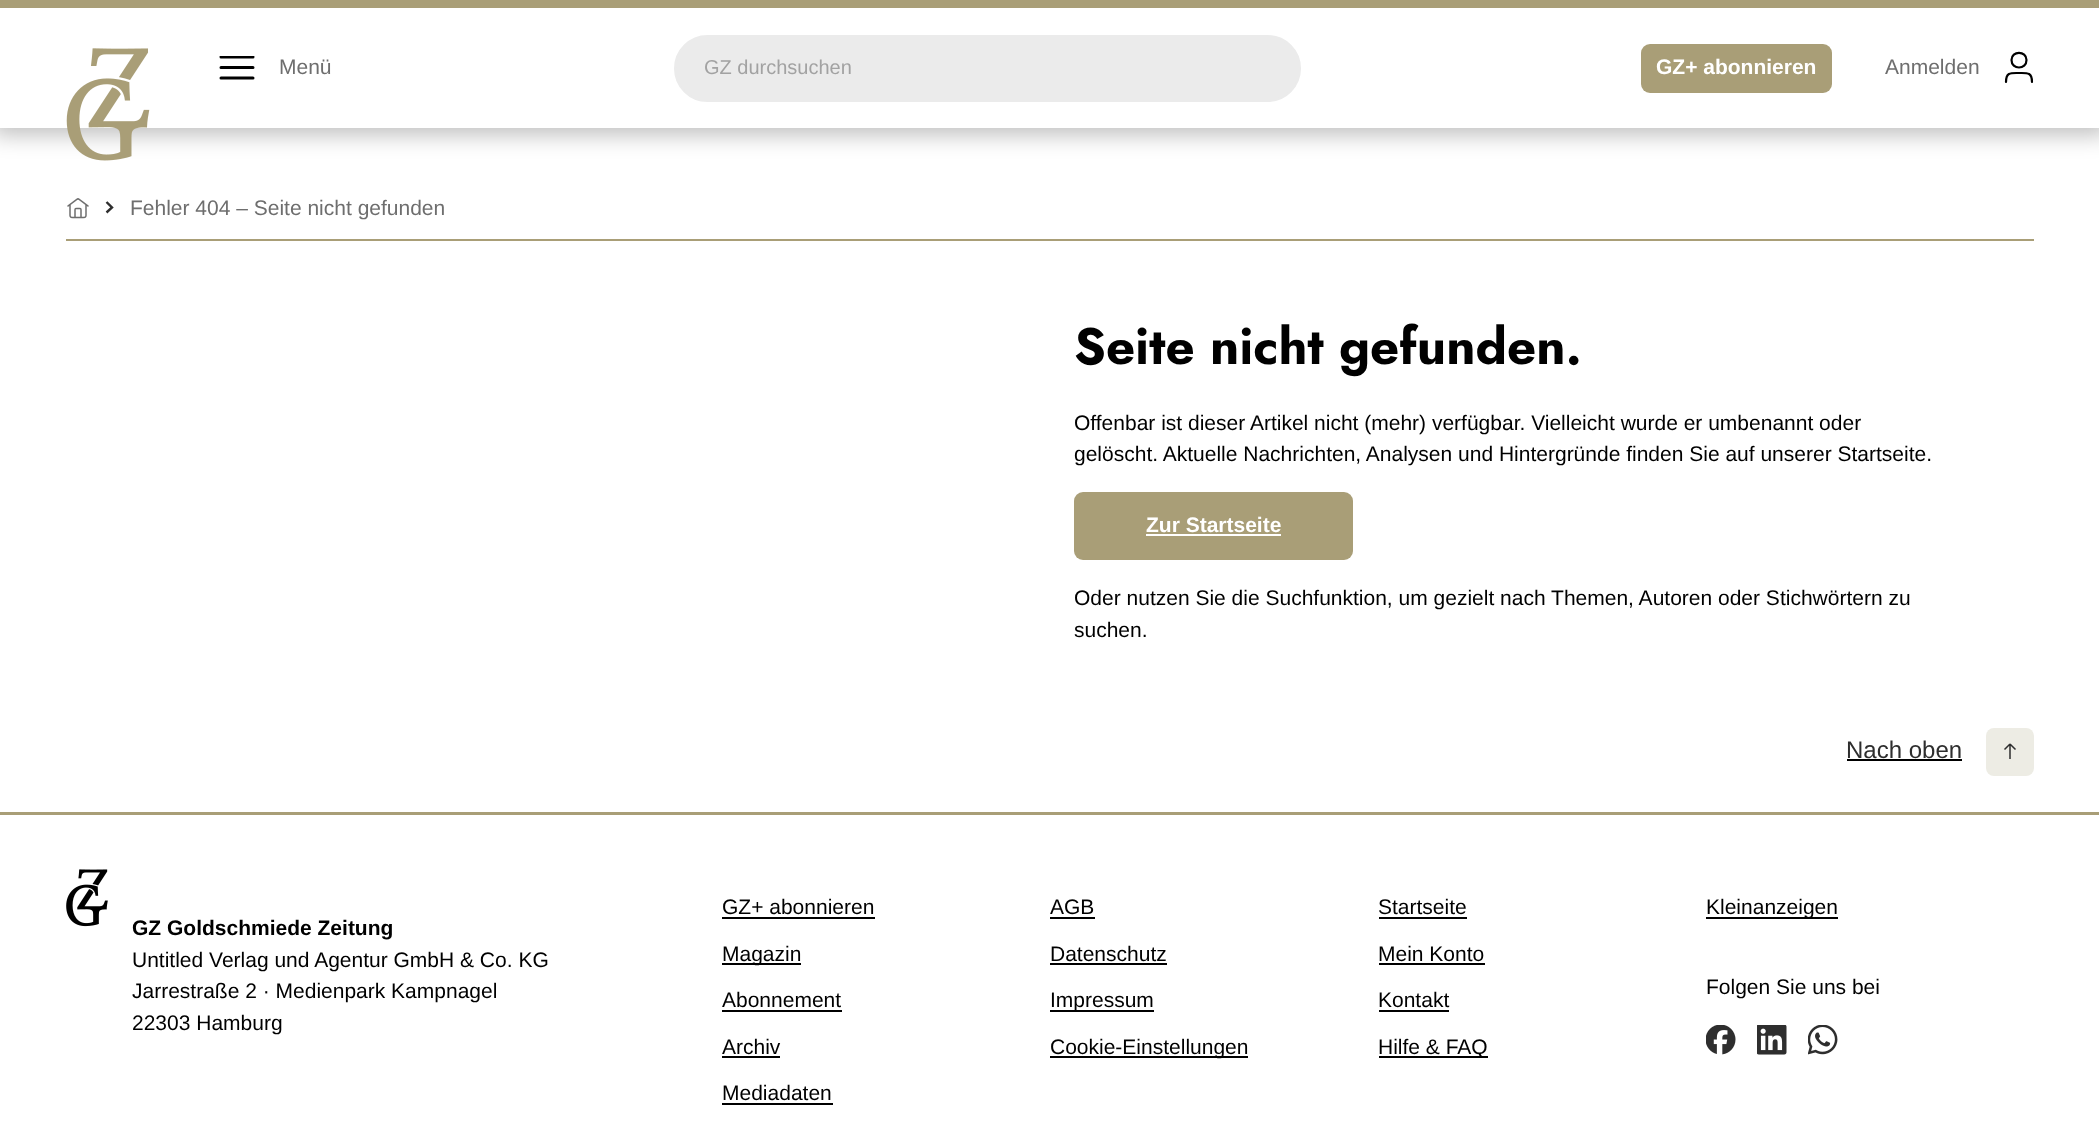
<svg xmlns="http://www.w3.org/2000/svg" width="2099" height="1129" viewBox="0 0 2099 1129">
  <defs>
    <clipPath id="clip1"><rect x="219" y="56" width="36" height="24"/></clipPath>
  </defs>
  <rect width="100%" height="100%" fill="rgb(255,255,255)"/>
  <rect x="-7" y="-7" width="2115" height="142" fill="rgba(0,0,0,0.25)" filter="blur(11px)"/>
  <rect x="0" y="8" width="2099" height="120" fill="rgb(255,255,255)"/>
  <rect x="0" y="0" width="2099" height="8" fill="rgb(169,158,119)"/>
  <image x="66" y="48" width="84" height="113" href="pic1.png"/>
  <g clip-path="url(#clip1)">
    <path d="M221 67.5H253M221 57H253M221 78H253" fill="none" stroke="rgb(0,0,0)" stroke-width="3" stroke-linecap="round" stroke-linejoin="round"/>
  </g>
  <text x="279" y="74" font-family="Liberation Sans" font-size="21" fill="rgb(110,110,110)">Menü</text>
  <rect x="675" y="36" width="625" height="65" rx="32.5" fill="rgb(235,235,235)" stroke="rgb(235,235,235)" stroke-width="2"/>
  <text x="704" y="74" font-family="Liberation Sans" font-size="20" fill="rgb(162,162,162)">GZ durchsuchen</text>
  <rect x="1641" y="44" width="191" height="49" rx="9" fill="rgb(169,158,119)"/>
  <text x="1656" y="74" font-family="Liberation Sans" font-size="21" font-weight="bold" fill="rgb(255,255,255)">GZ+ abonnieren</text>
  <text x="1885" y="74" font-family="Liberation Sans" font-size="21" fill="rgb(110,110,110)">Anmelden</text>
  <path d="M2032 82C2032 72 2027 73 2019 73C2011 73 2006 72 2006 82M2026.5 60C2026.5 70 2011.5 70 2011.5 60C2011.5 50.5 2026.5 50.5 2026.5 60Z" fill="none" stroke="rgb(0,0,0)" stroke-width="2.2" stroke-linecap="round" stroke-linejoin="round"/>
  <rect x="66" y="239" width="1968" height="2" fill="rgb(169,158,119)"/>
  <image x="67" y="198" width="22" height="21" href="pic2.png"/>
  <path d="M106.5 212.5L112 207.5L106.5 202" fill="none" stroke="rgb(46,46,46)" stroke-width="2.4"/>
  <text x="130" y="215" font-family="Liberation Sans" font-size="21" fill="rgb(110,110,110)">Fehler 404 – Seite nicht gefunden</text>
  <text x="1074" y="364" font-family="Jost" font-size="51" font-weight="bold" fill="rgb(0,0,0)">Seite nicht gefunden.</text>
  <g font-family="Liberation Sans" font-size="21" fill="rgb(0,0,0)">
    <text>
      <tspan x="1074" y="430">Offenbar ist dieser Artikel nicht (mehr) verfügbar. Vielleicht wurde er umbenannt oder</tspan>
      <tspan x="1074" y="461">gelöscht. Aktuelle Nachrichten, Analysen und Hintergründe finden Sie auf unserer Startseite.</tspan>
    </text>
  </g>
  <rect x="1074" y="492" width="279" height="68" rx="9" fill="rgb(169,158,119)"/>
  <text x="1146" y="532" font-family="Liberation Sans" font-size="21" font-weight="bold" fill="rgb(255,255,255)">Zur Startseite</text>
  <rect x="1146" y="534" width="135" height="2" fill="rgb(255,255,255)"/>
  <g font-family="Liberation Sans" font-size="21" fill="rgb(0,0,0)">
    <text>
      <tspan x="1074" y="605">Oder nutzen Sie die Suchfunktion, um gezielt nach Themen, Autoren oder Stichwörtern zu</tspan>
      <tspan x="1074" y="637">suchen.</tspan>
    </text>
  </g>
  <text x="1846" y="758" font-family="Liberation Sans" font-size="24" fill="rgb(46,46,46)">Nach oben</text>
  <rect x="1847" y="759" width="115" height="2" fill="rgb(0,0,0)"/>
  <rect x="1986" y="728" width="48" height="48" rx="8" fill="rgb(237,236,228)"/>
  <path d="M2015.5 749.5L2010 744M2010 744L2004.5 749.5M2010 744V759" fill="none" stroke="rgb(46,46,46)" stroke-width="1.5"/>
  <rect x="0" y="812" width="2099" height="3" fill="rgb(169,158,119)"/>
  <image x="66" y="869" width="42" height="58" href="pic3.png"/>
  <text x="132" y="935" font-family="Liberation Sans" font-size="21" font-weight="bold" fill="rgb(0,0,0)">GZ Goldschmiede Zeitung</text>
  <g font-family="Liberation Sans" font-size="21" fill="rgb(0,0,0)">
    <text>
      <tspan x="132" y="967">Untitled Verlag und Agentur GmbH &amp; Co. KG</tspan>
      <tspan x="132" y="998">Jarrestraße 2 · Medienpark Kampnagel</tspan>
      <tspan x="132" y="1030">22303 Hamburg</tspan>
    </text>
    <text x="722" y="914">GZ+ abonnieren</text>
  </g>
  <rect x="722" y="917" width="153" height="2" fill="rgb(0,0,0)"/>
  <rect x="722" y="963" width="79" height="2" fill="rgb(0,0,0)"/>
  <g font-family="Liberation Sans" font-size="21" fill="rgb(0,0,0)">
    <text x="722" y="961">Magazin</text>
    <text x="722" y="1007">Abonnement</text>
  </g>
  <rect x="722" y="1010" width="120" height="2" fill="rgb(0,0,0)"/>
  <text x="722" y="1054" font-family="Liberation Sans" font-size="21" fill="rgb(0,0,0)">Archiv</text>
  <rect x="722" y="1056" width="58" height="2" fill="rgb(0,0,0)"/>
  <text x="722" y="1100" font-family="Liberation Sans" font-size="21" fill="rgb(0,0,0)">Mediadaten</text>
  <rect x="722" y="1103" width="111" height="2" fill="rgb(0,0,0)"/>
  <text x="1050" y="914" font-family="Liberation Sans" font-size="21" fill="rgb(0,0,0)">AGB</text>
  <rect x="1050" y="917" width="45" height="2" fill="rgb(0,0,0)"/>
  <text x="1050" y="961" font-family="Liberation Sans" font-size="21" fill="rgb(0,0,0)">Datenschutz</text>
  <rect x="1050" y="963" width="117" height="2" fill="rgb(0,0,0)"/>
  <rect x="1050" y="1010" width="104" height="2" fill="rgb(0,0,0)"/>
  <text x="1050" y="1007" font-family="Liberation Sans" font-size="21" fill="rgb(0,0,0)">Impressum</text>
  <rect x="1050" y="1056" width="198" height="2" fill="rgb(0,0,0)"/>
  <g font-family="Liberation Sans" font-size="21" fill="rgb(0,0,0)">
    <text x="1050" y="1054">Cookie-Einstellungen</text>
    <text x="1378" y="914">Startseite</text>
  </g>
  <rect x="1379" y="917" width="88" height="2" fill="rgb(0,0,0)"/>
  <text x="1378" y="961" font-family="Liberation Sans" font-size="21" fill="rgb(0,0,0)">Mein Konto</text>
  <rect x="1379" y="963" width="106" height="2" fill="rgb(0,0,0)"/>
  <text x="1378" y="1007" font-family="Liberation Sans" font-size="21" fill="rgb(0,0,0)">Kontakt</text>
  <rect x="1379" y="1010" width="70" height="2" fill="rgb(0,0,0)"/>
  <rect x="1379" y="1056" width="109" height="2" fill="rgb(0,0,0)"/>
  <text x="1378" y="1054" font-family="Liberation Sans" font-size="21" fill="rgb(0,0,0)">Hilfe &amp; FAQ</text>
  <rect x="1706" y="917" width="132" height="2" fill="rgb(0,0,0)"/>
  <g font-family="Liberation Sans" font-size="21" fill="rgb(0,0,0)">
    <text x="1706" y="914">Kleinanzeigen</text>
    <text x="1706" y="994">Folgen Sie uns bei</text>
  </g>
  <image x="1706" y="1025" width="30" height="30" href="pic4.png"/>
  <image x="1757" y="1025" width="30" height="30" href="pic5.png"/>
  <image x="1808" y="1025" width="30" height="30" href="pic6.png"/>
</svg>
